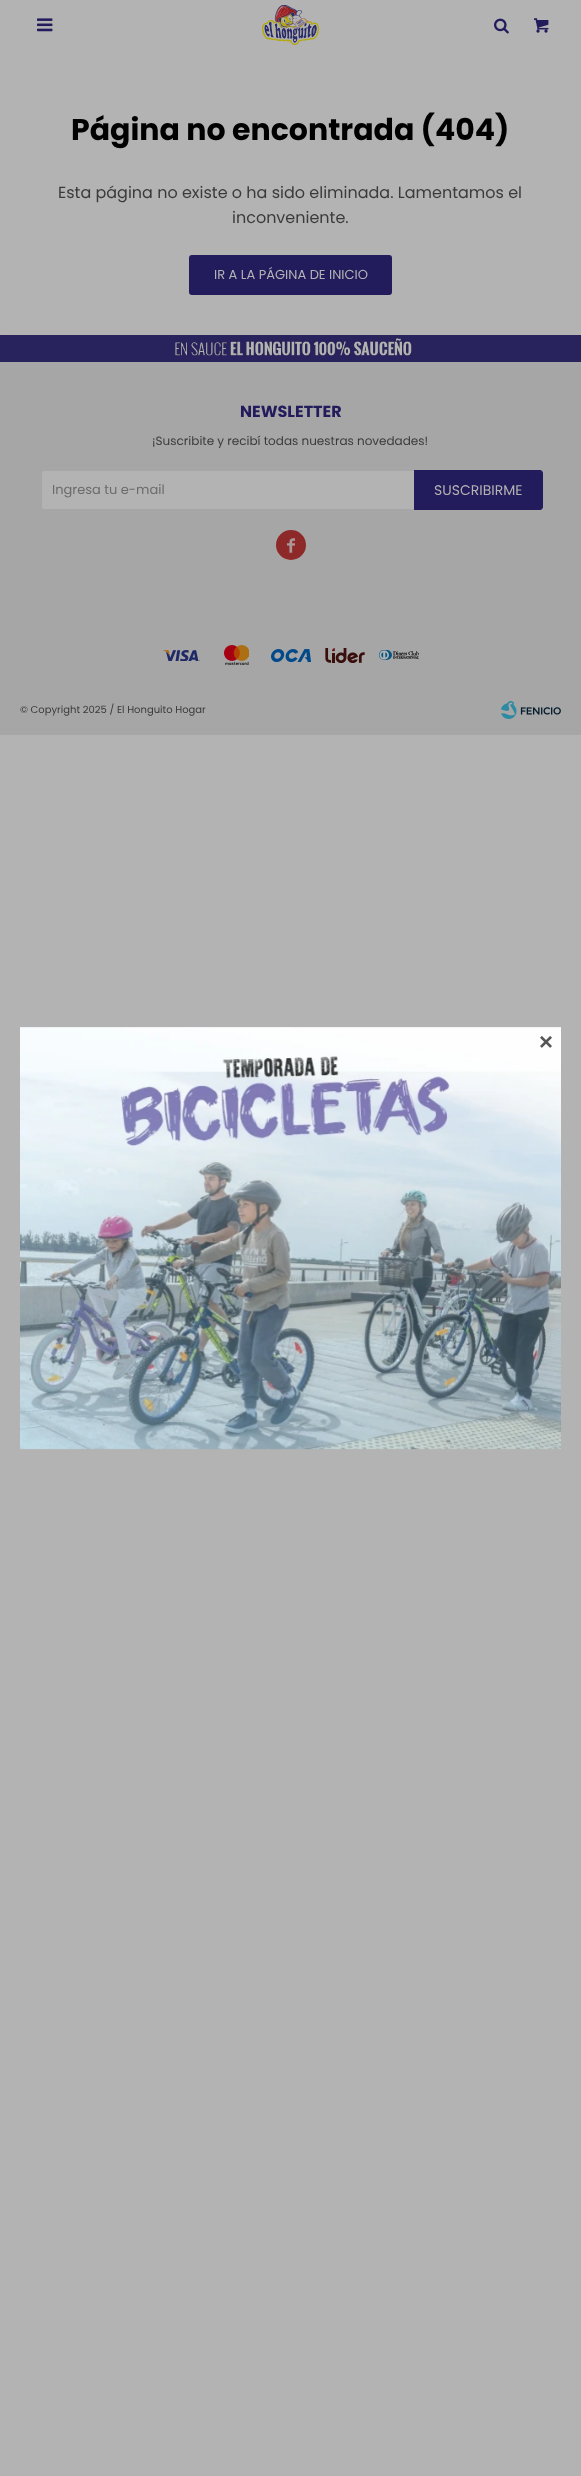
<svg xmlns="http://www.w3.org/2000/svg" width="581" height="2476" viewBox="0 0 581 2476">
  <rect width="100%" height="100%" fill="rgb(179,179,179)"/>
  <image x="37" y="18" width="16" height="14" href="pic1.png"/>
  <image x="262" y="5" width="57" height="40" href="pic2.png"/>
  <image x="494" y="18" width="15" height="16" href="pic3.png"/>
  <image x="534" y="18" width="15" height="15" href="pic4.png"/>
  <text x="71" y="140" font-family="Poppins" font-size="30" font-weight="bold" fill="rgb(0,0,0)">Página no encontrada (404)</text>
  <g font-family="Poppins" font-size="16" fill="rgb(59,59,59)">
    <text x="58" y="198">Esta página no existe o ha sido eliminada. Lamentamos el</text>
    <text x="232" y="223">inconveniente.</text>
  </g>
  <rect x="189" y="255" width="203" height="40" rx="3" fill="rgb(34,27,92)"/>
  <text x="214" y="279" font-family="Poppins" font-size="13" fill="rgb(179,179,179)">IR A LA PÁGINA DE INICIO</text>
  <rect x="0" y="362" width="581" height="373" fill="rgb(166,166,166)"/>
  <image x="0" y="335" width="581" height="27" href="pic5.png"/>
  <text x="240" y="417" font-family="Poppins" font-size="16" font-weight="bold" fill="rgb(34,27,92)">NEWSLETTER</text>
  <text x="152" y="445" font-family="Poppins" font-size="12" fill="rgb(59,59,59)">¡Suscribite y recibí todas nuestras novedades!</text>
  <rect x="41.5" y="470.5" width="499" height="39" rx="2.5" fill="rgb(179,179,179)" stroke="rgb(166,166,166)"/>
  <text x="52" y="494" font-family="Poppins" font-size="13" fill="rgb(107,107,107)">Ingresa tu e-mail</text>
  <path d="M414 470H540C541.5 470 543 471.5 543 473V507C543 508.5 541.5 510 540 510H414Z" fill="rgb(34,27,92)"/>
  <text x="434" y="495" font-family="Poppins" font-size="14" fill="rgb(179,179,179)">SUSCRIBIRME</text>
  <circle cx="291" cy="545" r="15" fill="rgb(141,41,41)"/>
  <image x="287" y="538" width="8" height="15" href="pic6.png"/>
  <image x="163" y="650" width="37" height="11" href="pic7.png"/>
  <image x="224" y="645" width="25" height="20" href="pic8.png"/>
  <image x="271" y="649" width="40" height="13" href="pic9.png"/>
  <image x="325" y="648" width="40" height="15" href="pic10.png"/>
  <image x="379" y="650" width="40" height="10" href="pic11.png"/>
  <text x="20" y="713" font-family="Poppins" font-size="10" fill="rgb(59,59,59)">© Copyright 2025 / El Honguito Hogar</text>
  <image x="501" y="701" width="60" height="18" href="pic12.png"/>
  <image x="20" y="1027" width="541" height="423" href="pic13.png"/>
  <image x="540" y="1036" width="12" height="12" href="pic14.png"/>
</svg>
